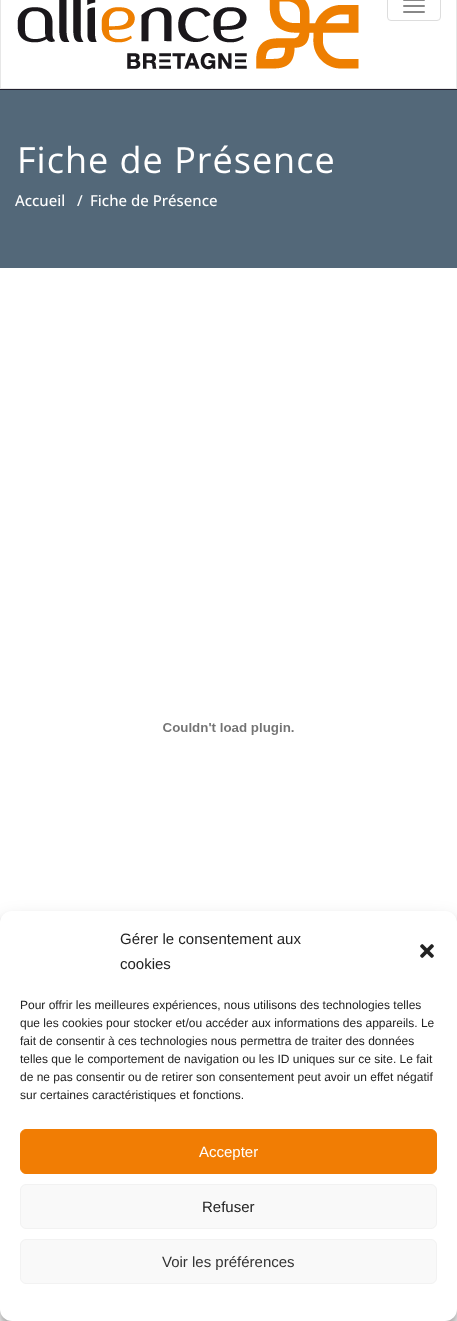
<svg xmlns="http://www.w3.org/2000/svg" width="457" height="1321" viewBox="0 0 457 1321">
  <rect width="100%" height="100%" fill="rgb(255,255,255)"/>
  <rect x="0.5" y="-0.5" width="456" height="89" fill="none" stroke="rgb(231,231,231)"/>
  <image x="17" y="0" width="342" height="70" href="pic1.png"/>
  <rect x="387.5" y="-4.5" width="53" height="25" rx="3.5" fill="none" stroke="rgb(221,221,221)"/>
  <rect x="403" y="-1" width="22" height="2" rx="1" fill="rgb(136,136,136)"/>
  <rect x="403" y="5" width="22" height="2" rx="1" fill="rgb(136,136,136)"/>
  <rect x="403" y="11" width="22" height="2" rx="1" fill="rgb(136,136,136)"/>
  <rect x="0" y="90" width="457" height="178" fill="rgb(83,104,121)"/>
  <rect x="0" y="89" width="457" height="1" fill="rgb(33,32,46)"/>
  <text x="17" y="173" font-family="Open Sans" font-size="36" letter-spacing="1" fill="rgb(255,255,255)">Fiche de Présence</text>
  <g font-family="Open Sans" font-size="15" font-weight="500" fill="rgb(255,255,255)">
    <text x="15" y="206">Accueil</text>
    <text x="77" y="206">/</text>
    <text x="90" y="206">Fiche de Présence</text>
  </g>
  <image x="163" y="723" width="131" height="12" href="pic2.png"/>
  <rect x="0" y="917" width="457" height="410" rx="12" fill="rgba(0,0,0,0.23)" filter="blur(3px)"/>
  <rect x="0" y="921" width="457" height="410" rx="12" fill="rgba(0,0,0,0.19)" filter="blur(10px)"/>
  <rect x="0" y="911" width="457" height="410" rx="12" fill="rgb(255,255,255)"/>
  <g font-family="Liberation Sans" font-size="15" fill="rgb(34,34,34)">
    <text>
      <tspan x="120" y="944">Gérer le consentement aux</tspan>
      <tspan x="120" y="969">cookies</tspan>
    </text>
  </g>
  <image x="420" y="944" width="14" height="14" href="pic3.png"/>
  <g font-family="Liberation Sans" font-size="12" fill="rgb(34,34,34)">
    <text>
      <tspan x="20" y="1009">Pour offrir les meilleures expériences, nous utilisons des technologies telles</tspan>
      <tspan x="20" y="1027">que les cookies pour stocker et/ou accéder aux informations des appareils. Le</tspan>
      <tspan x="20" y="1045">fait de consentir à ces technologies nous permettra de traiter des données</tspan>
      <tspan x="20" y="1063">telles que le comportement de navigation ou les ID uniques sur ce site. Le fait</tspan>
      <tspan x="20" y="1081">de ne pas consentir ou de retirer son consentement peut avoir un effet négatif</tspan>
      <tspan x="20" y="1099">sur certaines caractéristiques et fonctions.</tspan>
    </text>
  </g>
  <rect x="20.5" y="1129.5" width="416" height="44" rx="5.5" fill="rgb(241,125,4)" stroke="rgb(241,125,4)"/>
  <text x="199" y="1157" font-family="Liberation Sans" font-size="15" fill="rgb(255,255,255)">Accepter</text>
  <rect x="20.5" y="1184.5" width="416" height="44" rx="5.5" fill="rgb(249,249,249)" stroke="rgb(242,242,242)"/>
  <text x="202" y="1212" font-family="Liberation Sans" font-size="15" fill="rgb(34,34,34)">Refuser</text>
  <rect x="20.5" y="1239.5" width="416" height="44" rx="5.5" fill="rgb(249,249,249)" stroke="rgb(242,242,242)"/>
  <text x="162" y="1267" font-family="Liberation Sans" font-size="15" fill="rgb(51,51,51)">Voir les préférences</text>
</svg>
